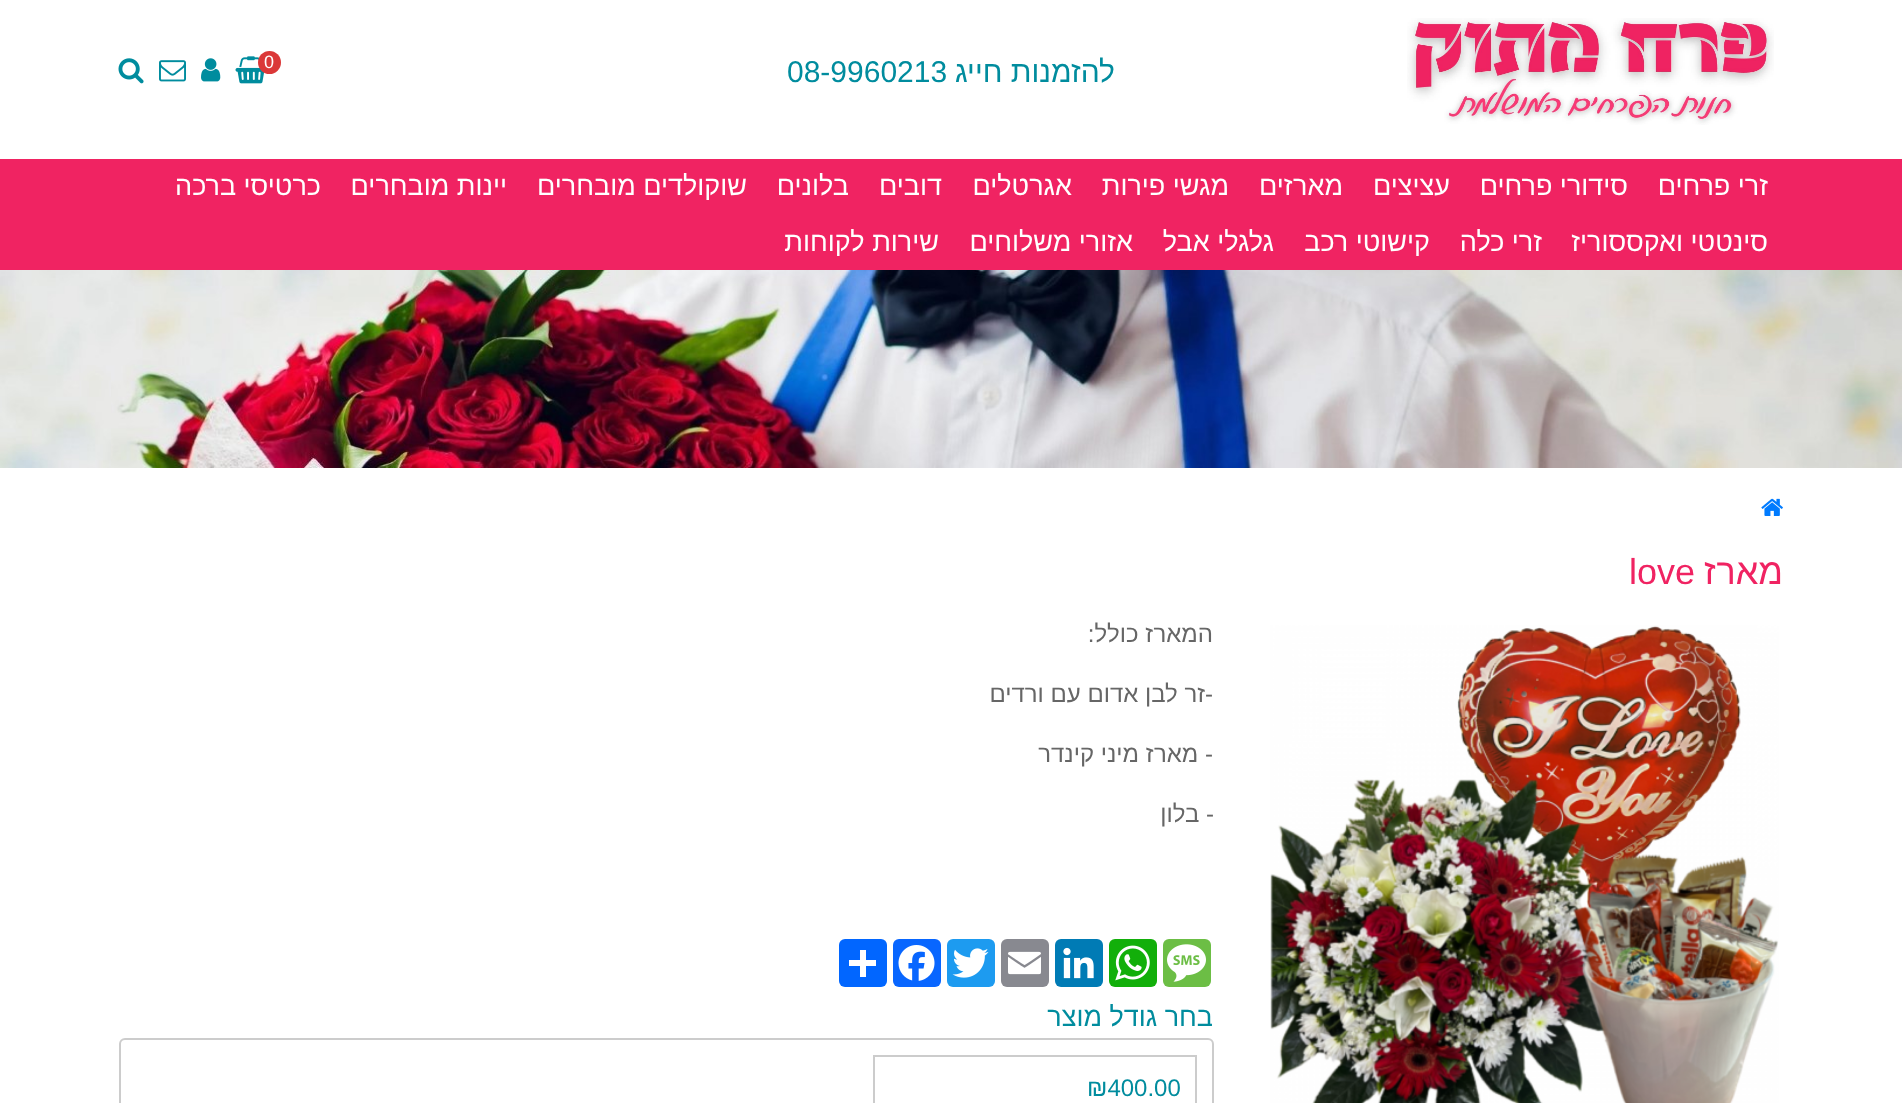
<svg xmlns="http://www.w3.org/2000/svg" width="1902" height="1103" viewBox="0 0 1902 1103">
  <rect width="100%" height="100%" fill="rgb(255,255,255)"/>
  <image x="1407" y="18" width="367" height="107" href="pic1.png"/>
  <text x="1115" y="82" font-family="Liberation Sans" font-size="30" direction="rtl" fill="rgb(0,140,158)">להזמנות חייג</text>
  <text x="787" y="82" font-family="Liberation Sans" font-size="30" fill="rgb(0,140,158)">08-9960213</text>
  <image x="235" y="56" width="30" height="28" href="pic2.png"/>
  <circle cx="269.5" cy="62.5" r="11.5" fill="rgb(219,56,56)"/>
  <text x="264" y="68" font-family="Liberation Sans" font-size="18" fill="rgb(255,255,255)">0</text>
  <image x="201" y="58" width="20" height="24" href="pic3.png"/>
  <image x="159" y="60" width="27" height="22" href="pic4.png"/>
  <image x="118" y="58" width="26" height="26" href="pic5.png"/>
  <rect x="0" y="159" width="1902" height="111" fill="rgb(240,35,98)"/>
  <g font-family="Liberation Sans" font-size="27" direction="rtl" fill="rgb(255,255,255)">
    <text x="1768" y="195">זרי פרחים</text>
    <text x="1628" y="195">סידורי פרחים</text>
    <text x="1450" y="195">עציצים</text>
    <text x="1343" y="195">מארזים</text>
    <text x="1229" y="195">מגשי פירות</text>
    <text x="1072" y="195">אגרטלים</text>
    <text x="942" y="195">דובים</text>
    <text x="849" y="195">בלונים</text>
    <text x="747" y="195">שוקולדים מובחרים</text>
    <text x="507" y="195">יינות מובחרים</text>
    <text x="321" y="195">כרטיסי ברכה</text>
    <text x="1768" y="251">סינטטי ואקססוריז</text>
    <text x="1542" y="251">זרי כלה</text>
    <text x="1430" y="251">קישוטי רכב</text>
    <text x="1274" y="251">גלגלי אבל</text>
    <text x="1133" y="251">אזורי משלוחים</text>
    <text x="939" y="251">שירות לקוחות</text>
  </g>
  <image x="0" y="270" width="1902" height="198" href="pic6.png"/>
  <image x="1761" y="498" width="22" height="18" href="pic7.png"/>
  <text x="1783" y="584" font-family="Liberation Sans" font-size="36" direction="rtl" fill="rgb(240,35,98)">מארז</text>
  <text x="1629" y="584" font-family="Liberation Sans" font-size="36" fill="rgb(240,35,98)">love</text>
  <image x="1270" y="625" width="509" height="478" href="pic8.png"/>
  <g font-family="Liberation Sans" font-size="24" direction="rtl" fill="rgb(102,102,102)">
    <text x="1213" y="642">המארז כולל:</text>
    <text x="1213" y="702">-זר לבן אדום עם ורדים</text>
    <text x="1213" y="762">- מארז מיני קינדר</text>
    <text x="1214" y="822">- בלון</text>
  </g>
  <rect x="1163" y="939" width="48" height="48" rx="6" fill="rgb(108,190,69)"/>
  <image x="1167" y="944" width="39" height="38" href="pic9.png"/>
  <rect x="1109" y="939" width="48" height="48" rx="6" fill="rgb(18,175,10)"/>
  <image x="1115" y="945" width="35" height="36" href="pic10.png"/>
  <rect x="1055" y="939" width="48" height="48" rx="6" fill="rgb(0,123,181)"/>
  <image x="1063" y="947" width="31" height="32" href="pic11.png"/>
  <rect x="1001" y="939" width="48" height="48" rx="6" fill="rgb(136,137,144)"/>
  <image x="1008" y="951" width="33" height="24" href="pic12.png"/>
  <rect x="947" y="939" width="48" height="48" rx="6" fill="rgb(29,155,240)"/>
  <image x="952" y="948" width="37" height="30" href="pic13.png"/>
  <rect x="893" y="939" width="48" height="48" rx="6" fill="rgb(8,102,255)"/>
  <image x="898" y="945" width="37" height="36" href="pic14.png"/>
  <rect x="839" y="939" width="48" height="48" rx="6" fill="rgb(1,102,255)"/>
  <rect x="860" y="950" width="6" height="27" fill="rgb(255,255,255)"/>
  <rect x="849" y="960" width="27" height="6" fill="rgb(255,255,255)"/>
  <text x="1213" y="1026" font-family="Liberation Sans" font-size="27" direction="rtl" fill="rgb(0,140,158)">בחר גודל מוצר</text>
  <rect x="120" y="1039" width="1093" height="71" rx="5" fill="none" stroke="rgb(204,204,204)" stroke-width="2"/>
  <rect x="874" y="1056" width="322" height="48" fill="none" stroke="rgb(204,204,204)" stroke-width="2"/>
  <text x="1087" y="1096" font-family="Liberation Sans" font-size="24" fill="rgb(0,140,158)">₪400.00</text>
</svg>
